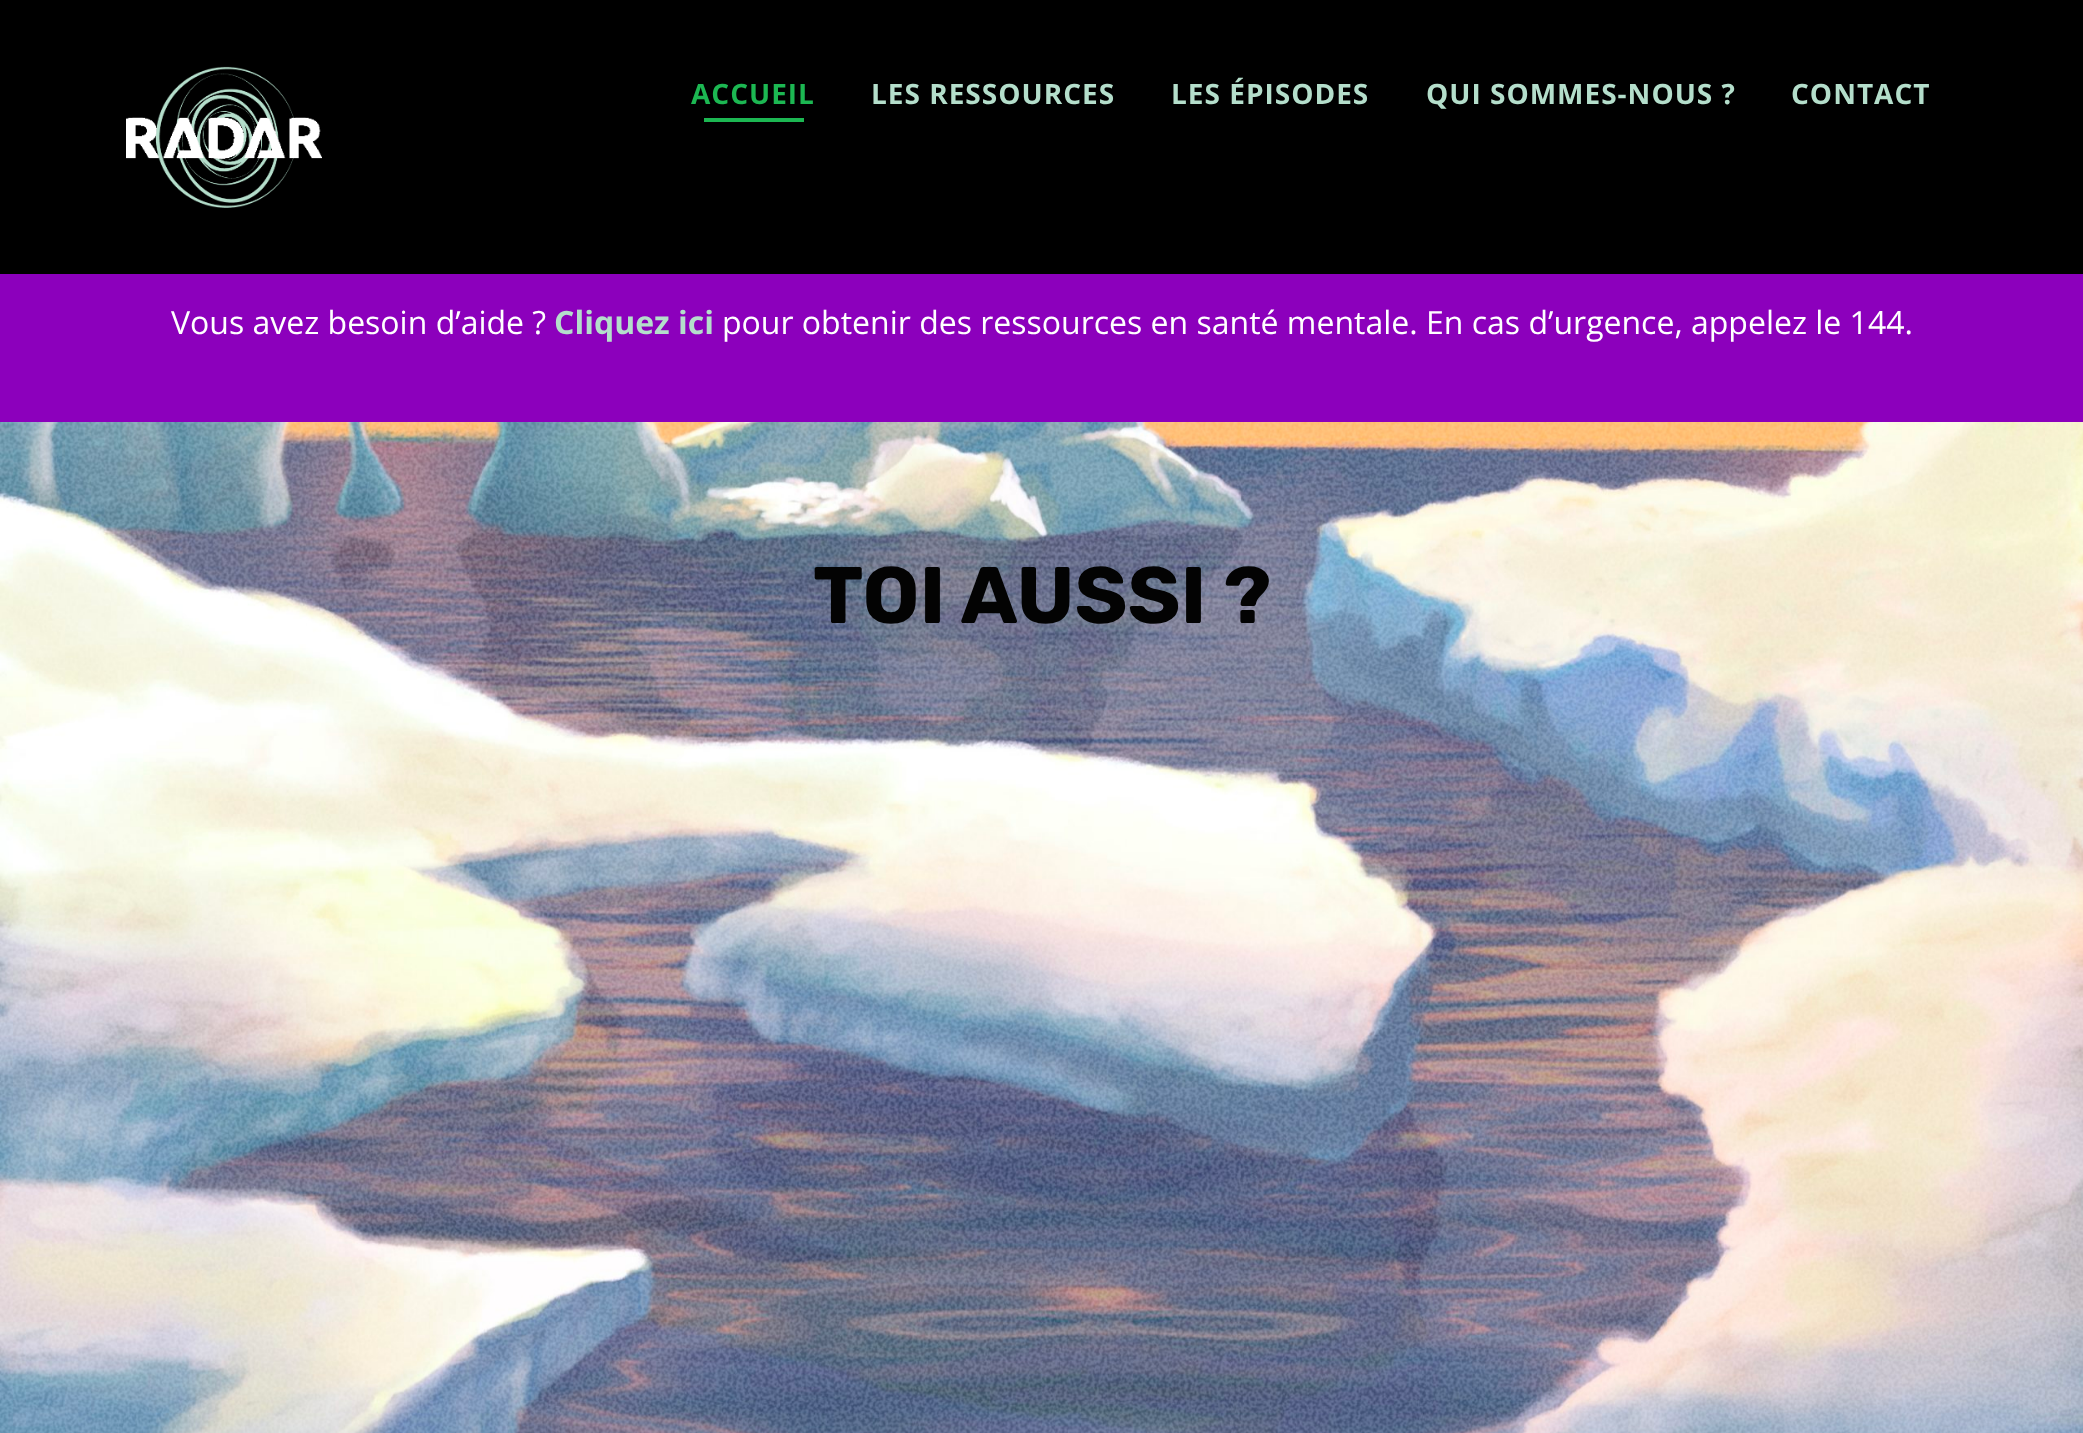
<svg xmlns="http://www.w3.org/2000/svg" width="2083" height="1433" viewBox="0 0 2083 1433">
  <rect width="100%" height="100%" fill="rgb(255,255,255)"/>
  <image x="0" y="422" width="2083" height="1011" href="pic1.png"/>
  <rect x="0" y="0" width="2083" height="274" fill="rgb(0,0,0)"/>
  <image x="126" y="66" width="196" height="142" href="pic2.png"/>
  <text x="691" y="104" font-family="Open Sans" font-size="28" font-weight="bold" letter-spacing="1" fill="rgb(28,183,82)">ACCUEIL</text>
  <rect x="704" y="118" width="100" height="4" fill="rgb(28,183,82)"/>
  <g font-family="Open Sans" font-size="28" font-weight="bold" letter-spacing="1" fill="rgb(180,222,203)">
    <text x="871" y="104">LES RESSOURCES</text>
    <text x="1171" y="104">LES ÉPISODES</text>
    <text x="1426" y="104">QUI SOMMES-NOUS ?</text>
    <text x="1791" y="104">CONTACT</text>
  </g>
  <rect x="0" y="274" width="2083" height="148" fill="rgb(140,0,188)"/>
  <text x="171" y="334" font-family="Open Sans" font-size="32" fill="rgb(255,255,255)">Vous avez besoin d’aide ?</text>
  <text x="554" y="334" font-family="Open Sans" font-size="32" font-weight="bold" fill="rgb(180,222,203)">Cliquez ici</text>
  <text x="722" y="334" font-family="Open Sans" font-size="32" fill="rgb(255,255,255)">pour obtenir des ressources en santé mentale. En cas d’urgence, appelez le 144.</text>
  <text x="813" y="623" font-family="Rubik" font-size="80" font-weight="bold" fill="rgb(3,3,3)">TOI AUSSI ?</text>
</svg>
